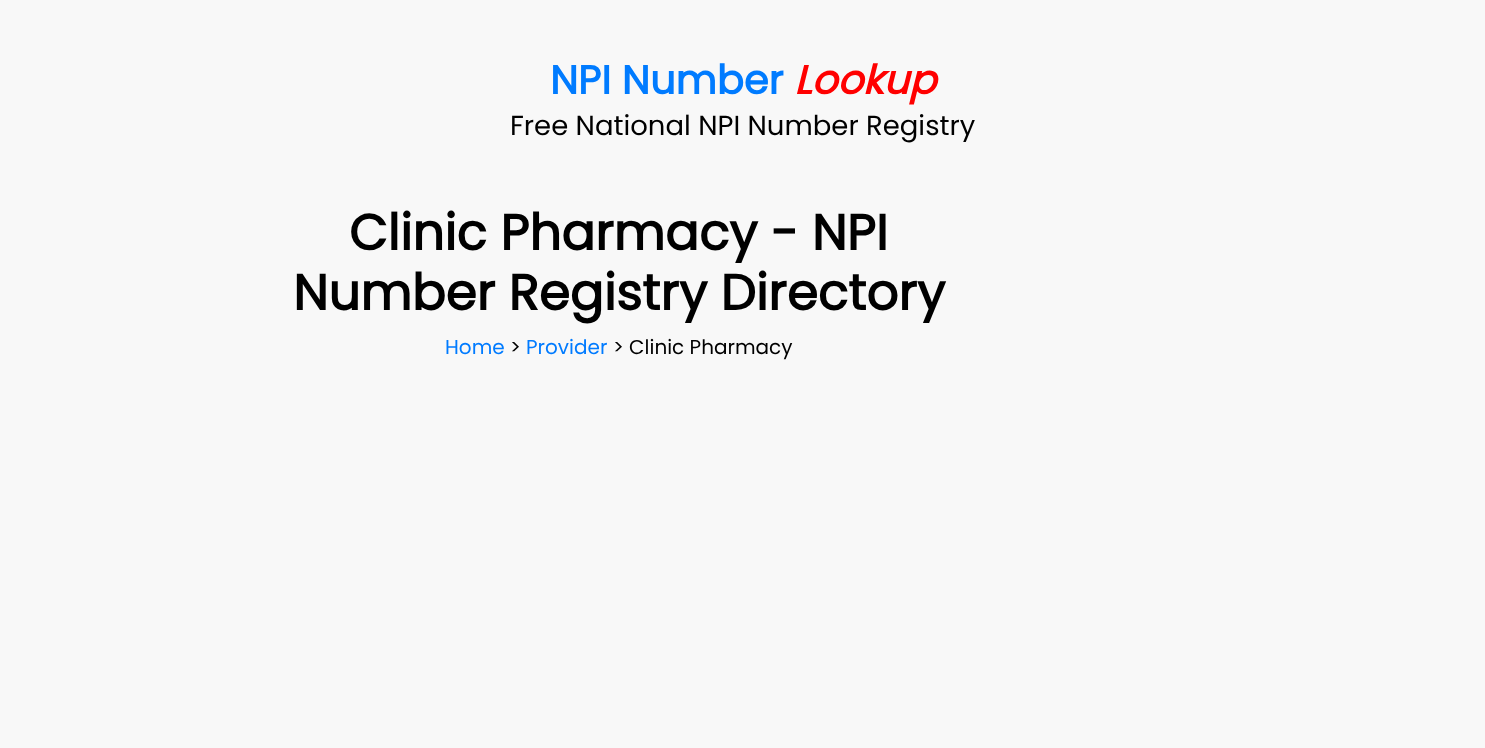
<svg xmlns="http://www.w3.org/2000/svg" width="1485" height="748" viewBox="0 0 1485 748">
  <rect width="100%" height="100%" fill="rgb(248,248,248)"/>
  <text x="550" y="94" font-family="Poppins" font-size="40" font-weight="bold" fill="rgb(0,123,255)">NPI Number</text>
  <text x="794" y="94" font-family="Poppins" font-size="40" font-weight="bold" font-style="italic" fill="rgb(255,0,0)">Lookup</text>
  <text x="510" y="135" font-family="Poppins" font-size="27.5" fill="rgb(0,0,0)">Free National NPI Number Registry</text>
  <g font-family="Poppins" font-size="50" font-weight="bold" fill="rgb(0,0,0)">
    <text x="349" y="250">Clinic Pharmacy - NPI</text>
    <text x="293" y="310">Number Registry Directory</text>
  </g>
  <text x="445" y="354" font-family="Poppins" font-size="20" fill="rgb(0,123,255)">Home</text>
  <text x="510" y="354" font-family="Poppins" font-size="20" fill="rgb(0,0,0)">&gt;</text>
  <text x="526" y="354" font-family="Poppins" font-size="20" fill="rgb(0,123,255)">Provider</text>
  <text x="613" y="354" font-family="Poppins" font-size="20" fill="rgb(0,0,0)">&gt; Clinic Pharmacy</text>
</svg>
